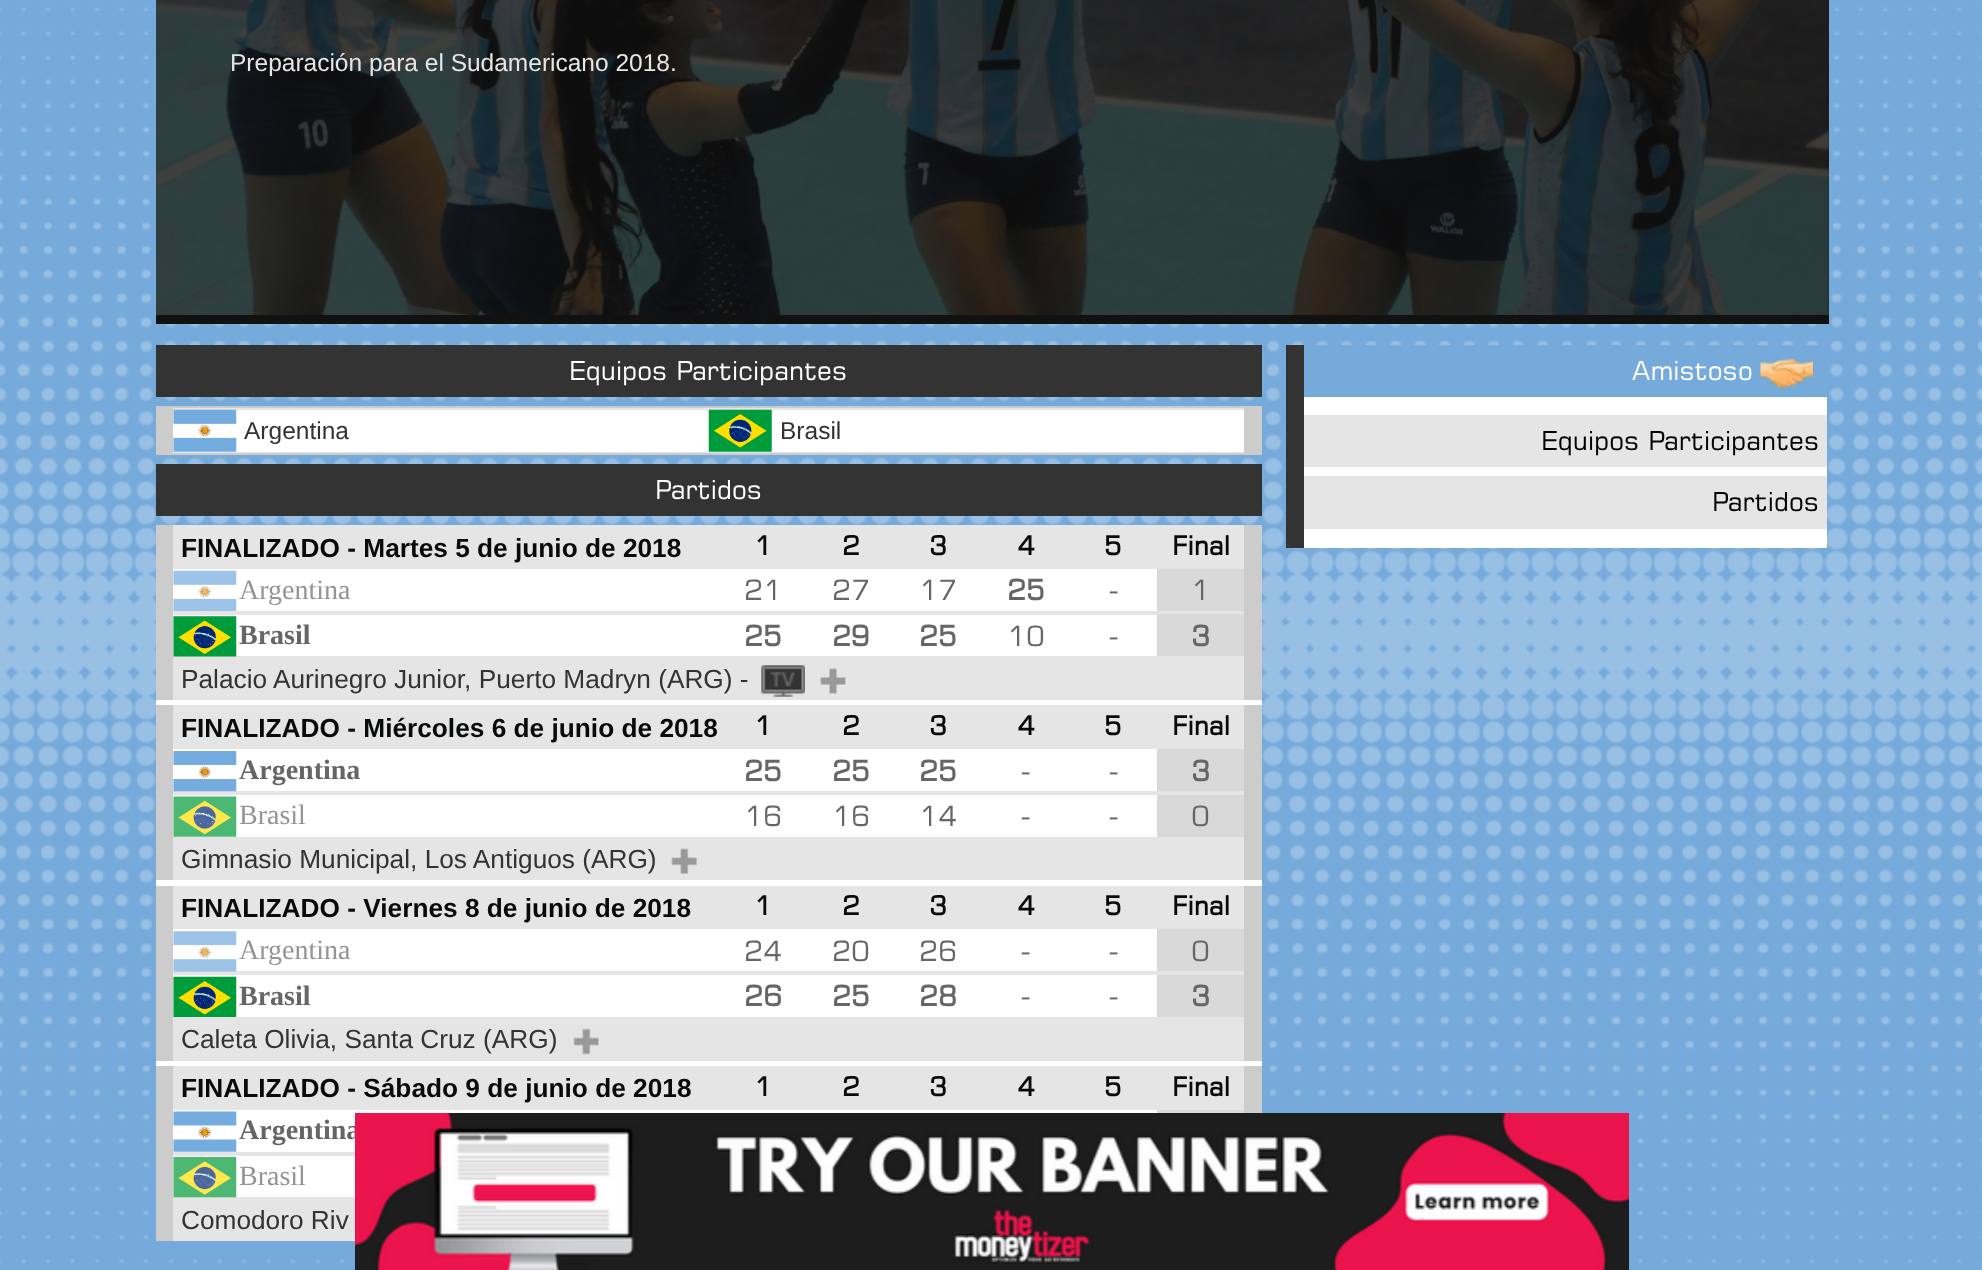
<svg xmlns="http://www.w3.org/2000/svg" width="1982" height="1270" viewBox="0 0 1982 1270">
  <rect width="100%" height="100%" fill="rgb(255,255,255)"/>
  <image x="0" y="0" width="1982" height="1270" href="pic1.png"/>
  <rect x="156" y="0" width="1673" height="315" fill="rgb(17,17,17)"/>
  <image x="155" y="0" width="1674" height="324" href="pic2.png"/>
  <rect x="156" y="315" width="1673" height="9" fill="rgb(17,17,17)"/>
  <text x="230" y="71" font-family="Liberation Sans" font-size="24.5" fill="rgb(229,229,229)">Preparación para el Sudamericano 2018.</text>
  <rect x="156" y="345" width="1106" height="52" fill="rgb(51,51,51)"/>
  <text x="569" y="380" font-family="'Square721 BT'" font-size="26.25" fill="rgb(255,255,255)">Equipos Participantes</text>
  <rect x="173" y="410" width="1071" height="42" fill="rgb(255,255,255)"/>
  <rect x="173" y="406" width="1071" height="2" fill="rgb(204,204,204)"/>
  <rect x="1244" y="406" width="18" height="47" fill="rgb(204,204,204)"/>
  <rect x="173" y="453" width="1089" height="2" fill="rgb(204,204,204)"/>
  <rect x="156" y="406" width="17" height="49" fill="rgb(204,204,204)"/>
  <rect x="173" y="408" width="1071" height="2" fill="rgb(229,229,229)"/>
  <rect x="173" y="452" width="1071" height="1" fill="rgb(229,229,229)"/>
  <image x="173" y="409" width="64" height="43" href="pic3.png"/>
  <text x="244" y="439" font-family="Liberation Sans" font-size="24.5" fill="rgb(51,51,51)">Argentina</text>
  <image x="708" y="409" width="64" height="43" href="pic4.png"/>
  <text x="780" y="439" font-family="Liberation Sans" font-size="24.5" fill="rgb(51,51,51)">Brasil</text>
  <rect x="156" y="464" width="1106" height="52" fill="rgb(51,51,51)"/>
  <text x="655" y="499" font-family="'Square721 BT'" font-size="26.25" fill="rgb(255,255,255)">Partidos</text>
  <rect x="156" y="569" width="1106" height="628" fill="rgb(255,255,255)"/>
  <rect x="1244" y="525" width="18" height="175" fill="rgb(204,204,204)"/>
  <rect x="156" y="525" width="17" height="175" fill="rgb(204,204,204)"/>
  <rect x="173" y="525" width="1071" height="44" fill="rgb(229,229,229)"/>
  <text x="181" y="557" font-family="Liberation Sans" font-size="26.25" font-weight="bold" fill="rgb(8,10,11)">FINALIZADO - Martes 5 de junio de 2018</text>
  <g font-family="'Square721 BT'" font-size="26.25" font-weight="bold" fill="rgb(8,10,11)">
    <text x="754" y="555">1</text>
    <text x="842" y="555">2</text>
    <text x="929" y="555">3</text>
    <text x="1017" y="555">4</text>
    <text x="1104" y="555">5</text>
    <text x="1172" y="555">Final</text>
  </g>
  <rect x="173" y="611" width="1071" height="4" fill="rgb(229,229,229)"/>
  <image x="173" y="570" width="64" height="41" href="pic5.png"/>
  <text x="239" y="599" font-family="Liberation Serif" font-size="28" fill="rgb(148,148,148)">Argentina</text>
  <g font-family="'Square721 BT'" font-size="28" fill="rgb(102,102,102)">
    <text x="744" y="600">21</text>
    <text x="832" y="600">27</text>
    <text x="919" y="600">17</text>
  </g>
  <text x="1007" y="600" font-family="'Square721 BT'" font-size="28" font-weight="bold" fill="rgb(102,102,102)">25</text>
  <text x="1108" y="600" font-family="'Square721 BT'" font-size="28" fill="rgb(102,102,102)">-</text>
  <rect x="1157" y="569" width="87" height="42" fill="rgb(217,217,217)"/>
  <text x="1191" y="600" font-family="'Square721 BT'" font-size="28" fill="rgb(102,102,102)">1</text>
  <rect x="173" y="656" width="1071" height="44" fill="rgb(229,229,229)"/>
  <image x="173" y="616" width="64" height="41" href="pic6.png"/>
  <text x="239" y="644" font-family="Liberation Serif" font-size="28" font-weight="bold" fill="rgb(102,102,102)">Brasil</text>
  <g font-family="'Square721 BT'" font-size="28" font-weight="bold" fill="rgb(102,102,102)">
    <text x="744" y="646">25</text>
    <text x="832" y="646">29</text>
    <text x="919" y="646">25</text>
  </g>
  <g font-family="'Square721 BT'" font-size="28" fill="rgb(102,102,102)">
    <text x="1007" y="646">10</text>
    <text x="1108" y="646">-</text>
  </g>
  <rect x="1157" y="614" width="87" height="42" fill="rgb(217,217,217)"/>
  <text x="1191" y="646" font-family="'Square721 BT'" font-size="28" font-weight="bold" fill="rgb(102,102,102)">3</text>
  <text x="181" y="688" font-family="Liberation Sans" font-size="26.25" fill="rgb(51,51,51)">Palacio Aurinegro Junior, Puerto Madryn (ARG) -</text>
  <image x="761" y="665" width="44" height="32" href="pic7.png"/>
  <image x="820" y="668" width="26" height="26" href="pic8.png"/>
  <rect x="1244" y="705" width="18" height="175" fill="rgb(204,204,204)"/>
  <rect x="156" y="705" width="17" height="175" fill="rgb(204,204,204)"/>
  <rect x="173" y="705" width="1071" height="44" fill="rgb(229,229,229)"/>
  <text x="181" y="737" font-family="Liberation Sans" font-size="26.25" font-weight="bold" fill="rgb(8,10,11)">FINALIZADO - Miércoles 6 de junio de 2018</text>
  <g font-family="'Square721 BT'" font-size="26.25" font-weight="bold" fill="rgb(8,10,11)">
    <text x="754" y="735">1</text>
    <text x="842" y="735">2</text>
    <text x="929" y="735">3</text>
    <text x="1017" y="735">4</text>
    <text x="1104" y="735">5</text>
    <text x="1172" y="735">Final</text>
  </g>
  <rect x="173" y="791" width="1071" height="4" fill="rgb(229,229,229)"/>
  <image x="173" y="751" width="64" height="41" href="pic9.png"/>
  <text x="239" y="779" font-family="Liberation Serif" font-size="28" font-weight="bold" fill="rgb(102,102,102)">Argentina</text>
  <g font-family="'Square721 BT'" font-size="28" font-weight="bold" fill="rgb(102,102,102)">
    <text x="744" y="781">25</text>
    <text x="832" y="781">25</text>
    <text x="919" y="781">25</text>
  </g>
  <g font-family="'Square721 BT'" font-size="28" fill="rgb(102,102,102)">
    <text x="1020" y="781">-</text>
    <text x="1108" y="781">-</text>
  </g>
  <rect x="1157" y="749" width="87" height="42" fill="rgb(217,217,217)"/>
  <text x="1191" y="781" font-family="'Square721 BT'" font-size="28" font-weight="bold" fill="rgb(102,102,102)">3</text>
  <image x="173" y="796" width="64" height="41" href="pic10.png"/>
  <text x="239" y="824" font-family="Liberation Serif" font-size="28" fill="rgb(148,148,148)">Brasil</text>
  <g font-family="'Square721 BT'" font-size="28" fill="rgb(102,102,102)">
    <text x="744" y="826">16</text>
    <text x="832" y="826">16</text>
    <text x="919" y="826">14</text>
    <text x="1020" y="826">-</text>
    <text x="1108" y="826">-</text>
  </g>
  <rect x="1157" y="795" width="87" height="42" fill="rgb(217,217,217)"/>
  <text x="1191" y="826" font-family="'Square721 BT'" font-size="28" fill="rgb(102,102,102)">0</text>
  <rect x="173" y="837" width="1071" height="43" fill="rgb(229,229,229)"/>
  <text x="181" y="868" font-family="Liberation Sans" font-size="26.25" fill="rgb(51,51,51)">Gimnasio Municipal, Los Antiguos (ARG)</text>
  <image x="671" y="848" width="26" height="26" href="pic11.png"/>
  <rect x="1244" y="886" width="18" height="175" fill="rgb(204,204,204)"/>
  <rect x="156" y="886" width="17" height="175" fill="rgb(204,204,204)"/>
  <rect x="173" y="886" width="1071" height="43" fill="rgb(229,229,229)"/>
  <text x="181" y="917" font-family="Liberation Sans" font-size="26.25" font-weight="bold" fill="rgb(8,10,11)">FINALIZADO - Viernes 8 de junio de 2018</text>
  <g font-family="'Square721 BT'" font-size="26.25" font-weight="bold" fill="rgb(8,10,11)">
    <text x="754" y="915">1</text>
    <text x="842" y="915">2</text>
    <text x="929" y="915">3</text>
    <text x="1017" y="915">4</text>
    <text x="1104" y="915">5</text>
    <text x="1172" y="915">Final</text>
  </g>
  <rect x="173" y="971" width="1071" height="4" fill="rgb(229,229,229)"/>
  <image x="173" y="931" width="64" height="41" href="pic12.png"/>
  <text x="239" y="959" font-family="Liberation Serif" font-size="28" fill="rgb(148,148,148)">Argentina</text>
  <g font-family="'Square721 BT'" font-size="28" fill="rgb(102,102,102)">
    <text x="744" y="961">24</text>
    <text x="832" y="961">20</text>
    <text x="919" y="961">26</text>
    <text x="1020" y="961">-</text>
    <text x="1108" y="961">-</text>
  </g>
  <rect x="1157" y="929" width="87" height="42" fill="rgb(217,217,217)"/>
  <text x="1191" y="961" font-family="'Square721 BT'" font-size="28" fill="rgb(102,102,102)">0</text>
  <image x="173" y="976" width="64" height="41" href="pic13.png"/>
  <text x="239" y="1005" font-family="Liberation Serif" font-size="28" font-weight="bold" fill="rgb(102,102,102)">Brasil</text>
  <g font-family="'Square721 BT'" font-size="28" font-weight="bold" fill="rgb(102,102,102)">
    <text x="744" y="1006">26</text>
    <text x="832" y="1006">25</text>
    <text x="919" y="1006">28</text>
  </g>
  <g font-family="'Square721 BT'" font-size="28" fill="rgb(102,102,102)">
    <text x="1020" y="1006">-</text>
    <text x="1108" y="1006">-</text>
  </g>
  <rect x="1157" y="975" width="87" height="42" fill="rgb(217,217,217)"/>
  <text x="1191" y="1006" font-family="'Square721 BT'" font-size="28" font-weight="bold" fill="rgb(102,102,102)">3</text>
  <rect x="173" y="1017" width="1071" height="44" fill="rgb(229,229,229)"/>
  <text x="181" y="1048" font-family="Liberation Sans" font-size="26.25" fill="rgb(51,51,51)">Caleta Olivia, Santa Cruz (ARG)</text>
  <image x="573" y="1028" width="26" height="27" href="pic14.png"/>
  <rect x="1244" y="1066" width="18" height="47" fill="rgb(204,204,204)"/>
  <rect x="156" y="1066" width="17" height="175" fill="rgb(204,204,204)"/>
  <rect x="173" y="1066" width="1071" height="44" fill="rgb(229,229,229)"/>
  <text x="181" y="1097" font-family="Liberation Sans" font-size="26.25" font-weight="bold" fill="rgb(8,10,11)">FINALIZADO - Sábado 9 de junio de 2018</text>
  <g font-family="'Square721 BT'" font-size="26.25" font-weight="bold" fill="rgb(8,10,11)">
    <text x="754" y="1096">1</text>
    <text x="842" y="1096">2</text>
    <text x="929" y="1096">3</text>
    <text x="1017" y="1096">4</text>
    <text x="1104" y="1096">5</text>
    <text x="1172" y="1096">Final</text>
  </g>
  <rect x="173" y="1152" width="182" height="4" fill="rgb(229,229,229)"/>
  <image x="173" y="1111" width="64" height="41" href="pic15.png"/>
  <text x="239" y="1139" font-family="Liberation Serif" font-size="28" font-weight="bold" fill="rgb(102,102,102)">Argentina</text>
  <rect x="1157" y="1110" width="87" height="3" fill="rgb(217,217,217)"/>
  <rect x="173" y="1197" width="182" height="44" fill="rgb(229,229,229)"/>
  <image x="173" y="1157" width="64" height="41" href="pic16.png"/>
  <text x="239" y="1185" font-family="Liberation Serif" font-size="28" fill="rgb(148,148,148)">Brasil</text>
  <text x="181" y="1229" font-family="Liberation Sans" font-size="26.25" fill="rgb(51,51,51)">Comodoro Riv</text>
  <rect x="1304" y="397" width="523" height="151" fill="rgb(255,255,255)"/>
  <rect x="1286" y="345" width="18" height="203" fill="rgb(51,51,51)"/>
  <rect x="1304" y="345" width="516" height="52" fill="rgb(117,170,219)"/>
  <text x="1632" y="380" font-family="'Square721 BT'" font-size="26.25" fill="rgb(255,255,255)">Amistoso</text>
  <image x="1760" y="357" width="53" height="32" href="pic17.png"/>
  <rect x="1304" y="415" width="523" height="52" fill="rgb(229,229,229)"/>
  <text x="1541" y="450" font-family="'Square721 BT'" font-size="26.25" fill="rgb(0,0,0)">Equipos Participantes</text>
  <rect x="1304" y="476" width="523" height="53" fill="rgb(229,229,229)"/>
  <text x="1712" y="511" font-family="'Square721 BT'" font-size="26.25" fill="rgb(0,0,0)">Partidos</text>
  <image x="355" y="1113" width="907" height="128" href="pic18.png"/>
</svg>
